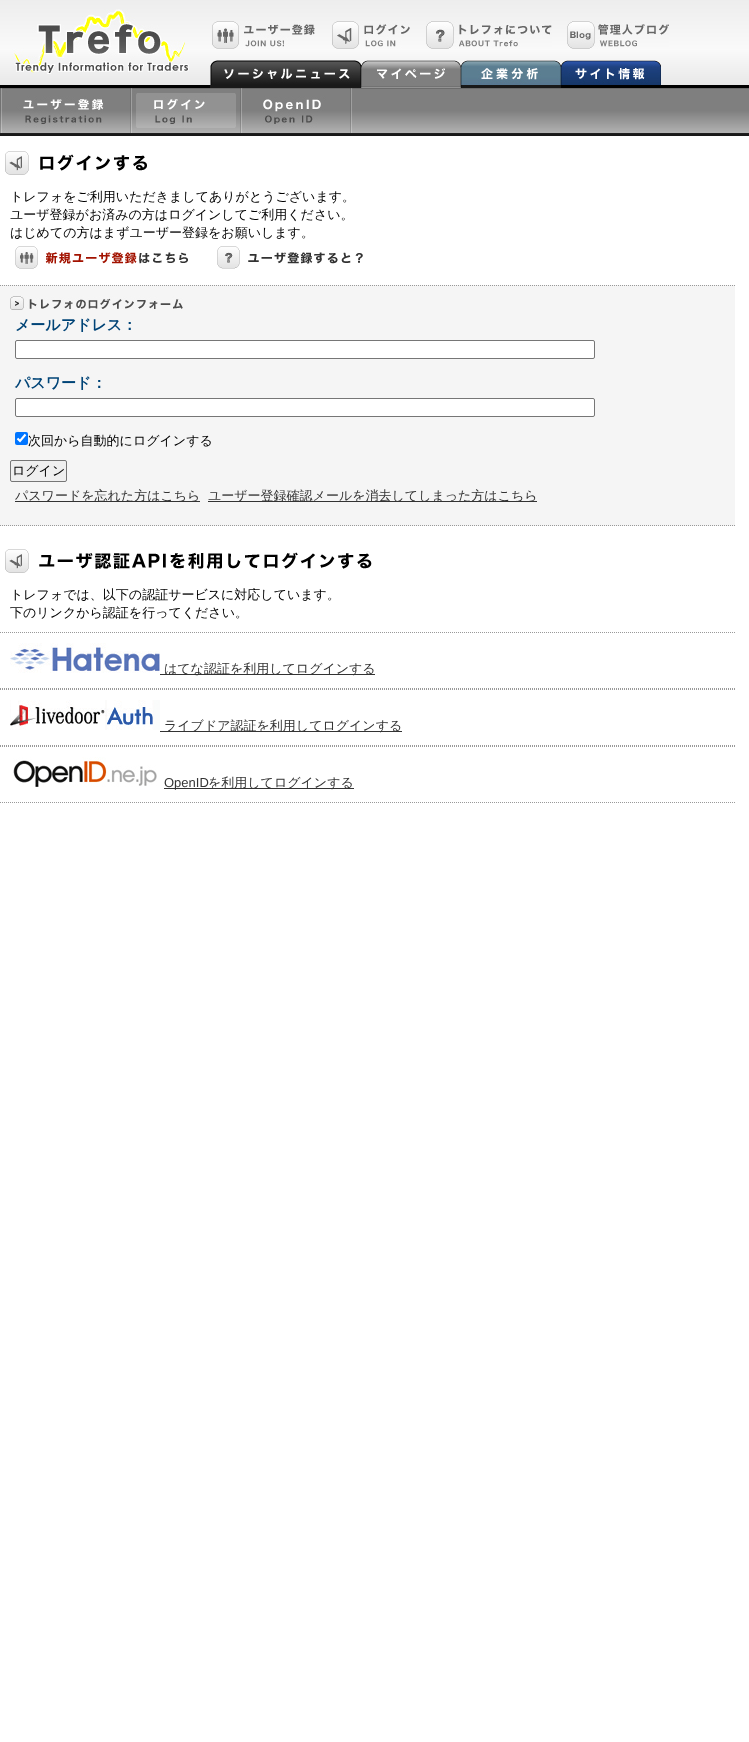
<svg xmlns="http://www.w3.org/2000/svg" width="749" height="1742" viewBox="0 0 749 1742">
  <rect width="100%" height="100%" fill="rgb(255,255,255)"/>
  <image x="0" y="0" width="749" height="88" href="pic1.png"/>
  <image x="12" y="9" width="177" height="65" href="pic2.png"/>
  <image x="212" y="21" width="103" height="28" href="pic3.png"/>
  <image x="332" y="21" width="78" height="28" href="pic4.png"/>
  <image x="426" y="21" width="126" height="28" href="pic5.png"/>
  <image x="567" y="21" width="102" height="28" href="pic6.png"/>
  <image x="210" y="60" width="151" height="28" href="pic7.png"/>
  <image x="361" y="60" width="100" height="28" href="pic8.png"/>
  <image x="461" y="60" width="100" height="28" href="pic9.png"/>
  <image x="561" y="60" width="100" height="25" href="pic10.png"/>
  <image x="0" y="88" width="749" height="48" href="pic11.png"/>
  <image x="0" y="88" width="104" height="45" href="pic12.png"/>
  <image x="130" y="88" width="106" height="45" href="pic13.png"/>
  <image x="240" y="88" width="112" height="45" href="pic14.png"/>
  <image x="5" y="151" width="142" height="24" href="pic15.png"/>
  <g font-family="WenQuanYi Zen Hei" font-size="13" font-weight="500" fill="rgb(0,0,0)">
    <text>
      <tspan x="10" y="201">トレフォをご利用いただきましてありがとうございます。</tspan>
      <tspan x="10" y="219">ユーザ登録がお済みの方はログインしてご利用ください。</tspan>
      <tspan x="10" y="237">はじめての方はまずユーザー登録をお願いします。</tspan>
    </text>
  </g>
  <image x="15" y="246" width="173" height="23" href="pic16.png"/>
  <image x="217" y="246" width="146" height="23" href="pic17.png"/>
  <rect x="0" y="285" width="735" height="241" fill="rgb(245,245,245)"/>
  <path d="M0 285.5H735" fill="none" stroke="rgb(153,153,153)" stroke-dasharray="1 1"/>
  <path d="M0 525.5H735" fill="none" stroke="rgb(153,153,153)" stroke-dasharray="1 1"/>
  <image x="10" y="296" width="173" height="14" href="pic18.png"/>
  <text x="15" y="330" font-family="WenQuanYi Zen Hei" font-size="15" font-weight="bold" fill="rgb(0,68,119)">メールアドレス：</text>
  <rect x="15.5" y="340.5" width="579" height="18" rx="1.5" fill="rgb(255,255,255)" stroke="rgb(118,118,118)"/>
  <text x="15" y="388" font-family="WenQuanYi Zen Hei" font-size="15" font-weight="bold" fill="rgb(0,68,119)">パスワード：</text>
  <rect x="15.5" y="398.5" width="579" height="18" rx="1.5" fill="rgb(255,255,255)" stroke="rgb(118,118,118)"/>
  <rect x="15" y="432" width="13" height="13" rx="2" fill="rgb(0,117,255)"/>
  <path d="M17.5 438.5L20 441L25.5 434.5" fill="none" stroke="rgb(255,255,255)" stroke-width="2.1"/>
  <text x="28" y="445" font-family="WenQuanYi Zen Hei" font-size="13" font-weight="500" fill="rgb(0,0,0)">次回から自動的にログインする</text>
  <rect x="10.5" y="460.5" width="56" height="21" rx="1.5" fill="rgb(239,239,239)" stroke="rgb(118,118,118)"/>
  <text x="12" y="475" font-family="WenQuanYi Zen Hei" font-size="13" font-weight="500" fill="rgb(0,0,0)">ログイン</text>
  <rect x="15" y="501" width="185" height="1" fill="rgb(51,51,51)"/>
  <text x="15" y="500" font-family="WenQuanYi Zen Hei" font-size="13" font-weight="500" fill="rgb(51,51,51)">パスワードを忘れた方はこちら</text>
  <rect x="208" y="501" width="329" height="1" fill="rgb(51,51,51)"/>
  <text x="208" y="500" font-family="WenQuanYi Zen Hei" font-size="13" font-weight="500" fill="rgb(51,51,51)">ユーザー登録確認メールを消去してしまった方はこちら</text>
  <image x="5" y="549" width="367" height="24" href="pic19.png"/>
  <g font-family="WenQuanYi Zen Hei" font-size="13" font-weight="500" fill="rgb(0,0,0)">
    <text>
      <tspan x="10" y="599">トレフォでは、以下の認証サービスに対応しています。</tspan>
      <tspan x="10" y="617">下のリンクから認証を行ってください。</tspan>
    </text>
  </g>
  <path d="M0 632.5H735" fill="none" stroke="rgb(153,153,153)" stroke-dasharray="1 1"/>
  <path d="M0 688.5H735" fill="none" stroke="rgb(153,153,153)" stroke-dasharray="1 1"/>
  <image x="10" y="643" width="150" height="30" href="pic20.png"/>
  <rect x="160" y="674" width="215" height="1" fill="rgb(51,51,51)"/>
  <text x="164" y="673" font-family="WenQuanYi Zen Hei" font-size="13" font-weight="500" fill="rgb(51,51,51)">はてな認証を利用してログインする</text>
  <path d="M0 689.5H735" fill="none" stroke="rgb(153,153,153)" stroke-dasharray="1 1"/>
  <path d="M0 745.5H735" fill="none" stroke="rgb(153,153,153)" stroke-dasharray="1 1"/>
  <image x="10" y="700" width="150" height="30" href="pic21.png"/>
  <rect x="160" y="731" width="242" height="1" fill="rgb(51,51,51)"/>
  <text x="164" y="730" font-family="WenQuanYi Zen Hei" font-size="13" font-weight="500" fill="rgb(51,51,51)">ライブドア認証を利用してログインする</text>
  <path d="M0 746.5H735" fill="none" stroke="rgb(153,153,153)" stroke-dasharray="1 1"/>
  <path d="M0 802.5H735" fill="none" stroke="rgb(153,153,153)" stroke-dasharray="1 1"/>
  <image x="13" y="757" width="144" height="30" href="pic22.png"/>
  <rect x="164" y="788" width="190" height="1" fill="rgb(51,51,51)"/>
  <text x="164" y="787" font-family="Liberation Sans" font-size="13" fill="rgb(51,51,51)">OpenID</text>
  <text x="208" y="787" font-family="WenQuanYi Zen Hei" font-size="13" font-weight="500" fill="rgb(51,51,51)">を利用してログインする</text>
</svg>
